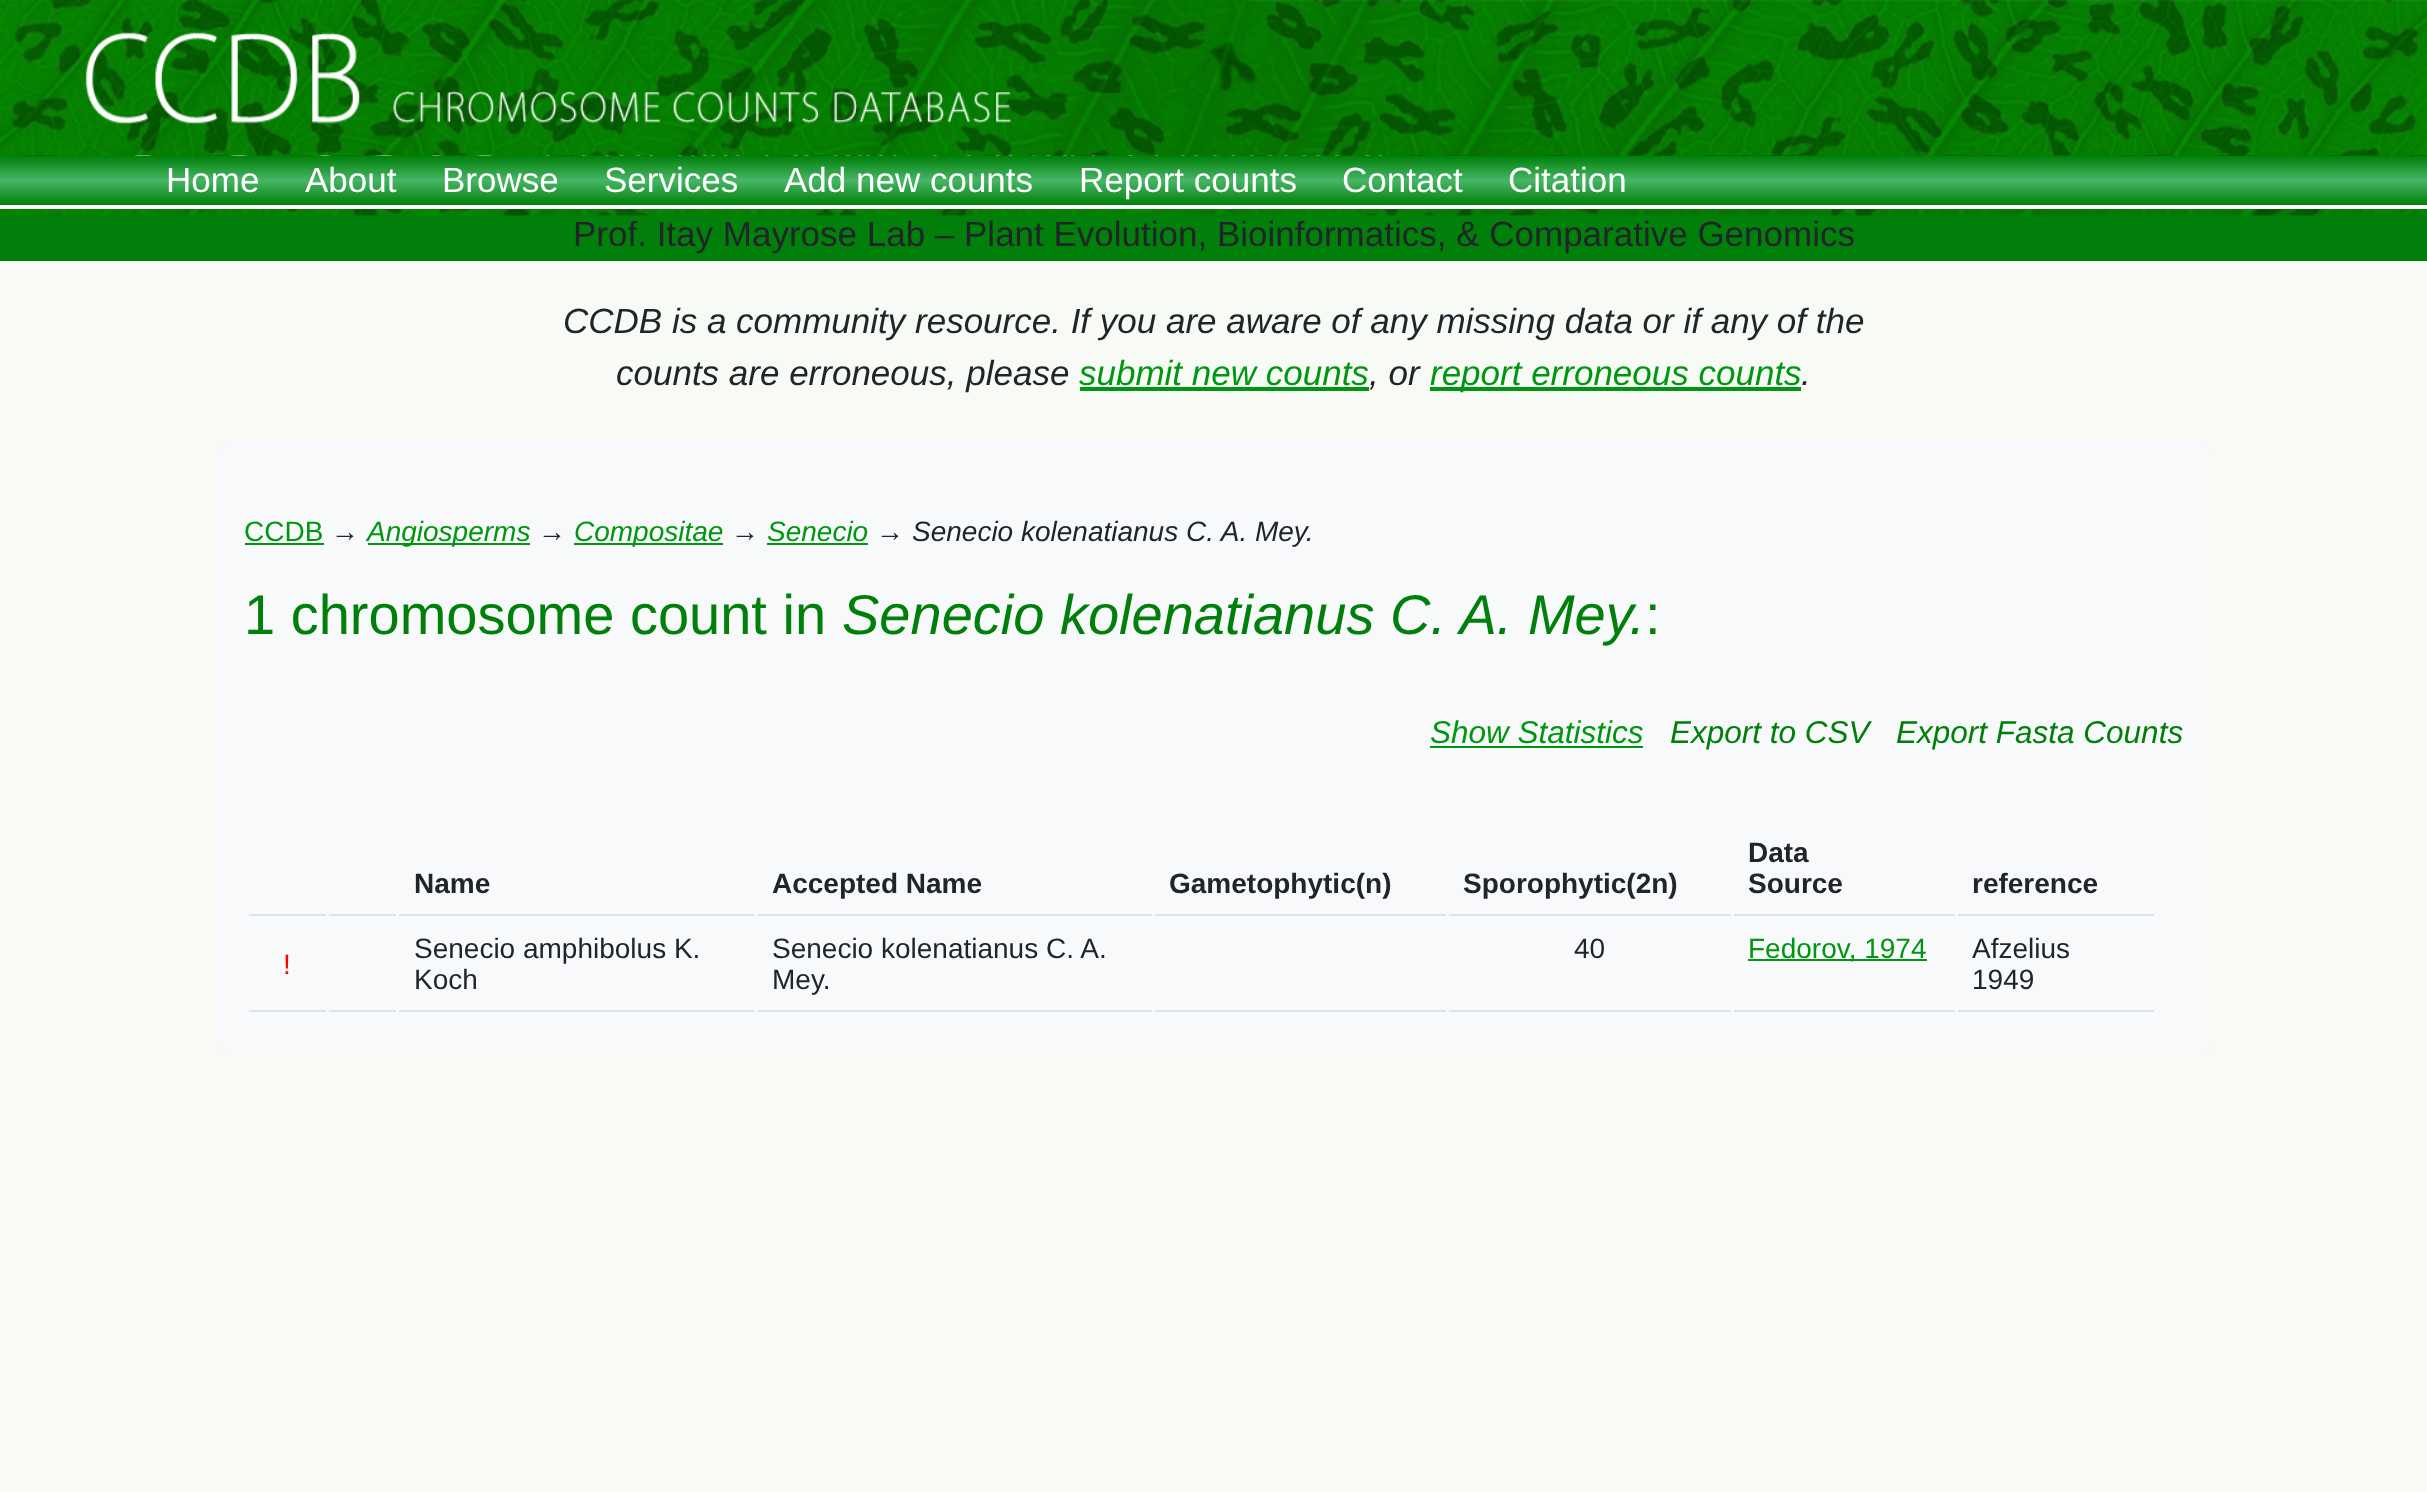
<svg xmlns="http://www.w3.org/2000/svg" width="2427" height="1492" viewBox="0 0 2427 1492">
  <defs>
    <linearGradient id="g1" gradientUnits="userSpaceOnUse" x1="1214" y1="156" x2="1214" y2="205"><stop offset="0" stop-color="rgb(0,128,10)"/><stop offset="0.5" stop-color="rgb(71,181,102)"/><stop offset="1" stop-color="rgb(0,128,10)"/></linearGradient>
  </defs>
  <rect width="100%" height="100%" fill="rgb(247,250,245)"/>
  <rect x="0" y="214" width="2427" height="47" fill="rgb(0,128,10)"/>
  <image x="0" y="155" width="2427" height="61" href="pic1.png"/>
  <image x="0" y="0" width="2427" height="156" href="pic2.png"/>
  <rect x="0" y="156" width="2427" height="49" fill="url(#g1)"/>
  <g font-family="Liberation Sans" font-size="35" fill="rgb(255,255,255)">
    <text x="166" y="192">Home</text>
    <text x="305" y="192">About</text>
    <text x="442" y="192">Browse</text>
    <text x="604" y="192">Services</text>
    <text x="784" y="192">Add new counts</text>
    <text x="1079" y="192">Report counts</text>
    <text x="1342" y="192">Contact</text>
    <text x="1508" y="192">Citation</text>
  </g>
  <rect x="0" y="205" width="2427" height="4" fill="rgb(255,255,255)"/>
  <text x="573" y="246" font-family="Liberation Sans" font-size="35" fill="rgb(33,37,41)">Prof. Itay Mayrose Lab – Plant Evolution, Bioinformatics, &amp; Comparative Genomics</text>
  <g font-family="Liberation Sans" font-size="35" font-style="italic" fill="rgb(33,37,41)">
    <text x="563" y="333">CCDB is a community resource. If you are aware of any missing data or if any of the</text>
    <text x="616" y="385">counts are erroneous, please</text>
  </g>
  <text x="1079" y="385" font-family="Liberation Sans" font-size="35" font-style="italic" fill="rgb(0,151,16)">submit new counts</text>
  <text x="1369" y="385" font-family="Liberation Sans" font-size="35" font-style="italic" fill="rgb(33,37,41)">, or</text>
  <rect x="1080" y="387" width="289" height="4" fill="rgb(0,151,16)"/>
  <rect x="1430" y="387" width="371" height="4" fill="rgb(0,151,16)"/>
  <text x="1430" y="385" font-family="Liberation Sans" font-size="35" font-style="italic" fill="rgb(0,151,16)">report erroneous counts</text>
  <text x="1801" y="385" font-family="Liberation Sans" font-size="35" font-style="italic" fill="rgb(33,37,41)">.</text>
  <rect x="217" y="441" width="1995" height="613" rx="14" fill="rgb(248,249,250)"/>
  <text x="244" y="541" font-family="Liberation Sans" font-size="28" fill="rgb(0,151,16)">CCDB</text>
  <rect x="245" y="543" width="79" height="2" fill="rgb(0,151,16)"/>
  <text x="331" y="541" font-family="Liberation Sans" font-size="28" fill="rgb(33,37,41)">→</text>
  <rect x="368" y="543" width="162" height="2" fill="rgb(0,151,16)"/>
  <text x="367" y="541" font-family="Liberation Sans" font-size="28" font-style="italic" fill="rgb(0,151,16)">Angiosperms</text>
  <text x="538" y="541" font-family="Liberation Sans" font-size="28" fill="rgb(33,37,41)">→</text>
  <rect x="574" y="543" width="149" height="2" fill="rgb(0,151,16)"/>
  <text x="574" y="541" font-family="Liberation Sans" font-size="28" font-style="italic" fill="rgb(0,151,16)">Compositae</text>
  <text x="731" y="541" font-family="Liberation Sans" font-size="28" fill="rgb(33,37,41)">→</text>
  <text x="767" y="541" font-family="Liberation Sans" font-size="28" font-style="italic" fill="rgb(0,151,16)">Senecio</text>
  <rect x="767" y="543" width="101" height="2" fill="rgb(0,151,16)"/>
  <text x="876" y="541" font-family="Liberation Sans" font-size="28" fill="rgb(33,37,41)">→</text>
  <text x="912" y="541" font-family="Liberation Sans" font-size="28" font-style="italic" fill="rgb(33,37,41)">Senecio kolenatianus C. A. Mey.</text>
  <text x="244" y="634" font-family="Liberation Sans" font-size="56" fill="rgb(0,128,10)">1 chromosome count in</text>
  <text x="842" y="634" font-family="Liberation Sans" font-size="56" font-style="italic" fill="rgb(0,128,10)">Senecio kolenatianus C. A. Mey.</text>
  <text x="1645" y="634" font-family="Liberation Sans" font-size="56" fill="rgb(0,128,10)">:</text>
  <text x="1430" y="743" font-family="Liberation Sans" font-size="31.5" font-style="italic" fill="rgb(0,151,16)">Show Statistics</text>
  <rect x="1430" y="746" width="213" height="2" fill="rgb(0,151,16)"/>
  <g font-family="Liberation Sans" font-size="31.5" font-style="italic" fill="rgb(0,128,10)">
    <text x="1670" y="743">Export to CSV</text>
    <text x="1896" y="743">Export Fasta Counts</text>
  </g>
  <rect x="399" y="914" width="355" height="2" fill="rgb(222,226,230)"/>
  <text x="414" y="893" font-family="Liberation Sans" font-size="28" font-weight="bold" fill="rgb(33,37,41)">Name</text>
  <rect x="758" y="914" width="394" height="2" fill="rgb(222,226,230)"/>
  <text x="772" y="893" font-family="Liberation Sans" font-size="28" font-weight="bold" fill="rgb(33,37,41)">Accepted Name</text>
  <rect x="1155" y="914" width="291" height="2" fill="rgb(222,226,230)"/>
  <text x="1169" y="893" font-family="Liberation Sans" font-size="28" font-weight="bold" fill="rgb(33,37,41)">Gametophytic(n)</text>
  <rect x="1449" y="914" width="282" height="2" fill="rgb(222,226,230)"/>
  <text x="1463" y="893" font-family="Liberation Sans" font-size="28" font-weight="bold" fill="rgb(33,37,41)">Sporophytic(2n)</text>
  <rect x="1734" y="914" width="221" height="2" fill="rgb(222,226,230)"/>
  <g font-family="Liberation Sans" font-size="28" font-weight="bold" fill="rgb(33,37,41)">
    <text>
      <tspan x="1748" y="862">Data</tspan>
      <tspan x="1748" y="893">Source</tspan>
    </text>
  </g>
  <rect x="1958" y="914" width="196" height="2" fill="rgb(222,226,230)"/>
  <text x="1972" y="893" font-family="Liberation Sans" font-size="28" font-weight="bold" fill="rgb(33,37,41)">reference</text>
  <rect x="249" y="914" width="77" height="2" fill="rgb(222,226,230)"/>
  <rect x="329" y="914" width="67" height="2" fill="rgb(222,226,230)"/>
  <rect x="399" y="1010" width="355" height="2" fill="rgb(222,226,230)"/>
  <g font-family="Liberation Sans" font-size="28" fill="rgb(33,37,41)">
    <text>
      <tspan x="414" y="958">Senecio amphibolus K.</tspan>
      <tspan x="414" y="989">Koch</tspan>
    </text>
  </g>
  <rect x="758" y="1010" width="394" height="2" fill="rgb(222,226,230)"/>
  <g font-family="Liberation Sans" font-size="28" fill="rgb(33,37,41)">
    <text>
      <tspan x="772" y="958">Senecio kolenatianus C. A.</tspan>
      <tspan x="772" y="989">Mey.</tspan>
    </text>
  </g>
  <rect x="1449" y="1010" width="282" height="2" fill="rgb(222,226,230)"/>
  <text x="1574" y="958" font-family="Liberation Sans" font-size="28" fill="rgb(33,37,41)">40</text>
  <rect x="1734" y="1010" width="221" height="2" fill="rgb(222,226,230)"/>
  <rect x="1748" y="959" width="179" height="2" fill="rgb(0,151,16)"/>
  <text x="1748" y="958" font-family="Liberation Sans" font-size="28" fill="rgb(0,151,16)">Fedorov, 1974</text>
  <rect x="1958" y="1010" width="196" height="2" fill="rgb(222,226,230)"/>
  <g font-family="Liberation Sans" font-size="28" fill="rgb(33,37,41)">
    <text>
      <tspan x="1972" y="958">Afzelius</tspan>
      <tspan x="1972" y="989">1949</tspan>
    </text>
  </g>
  <rect x="249" y="1010" width="77" height="2" fill="rgb(222,226,230)"/>
  <text x="283" y="974" font-family="Liberation Sans" font-size="28" fill="rgb(255,0,0)">!</text>
  <rect x="329" y="1010" width="67" height="2" fill="rgb(222,226,230)"/>
  <rect x="1155" y="1010" width="291" height="2" fill="rgb(222,226,230)"/>
</svg>
